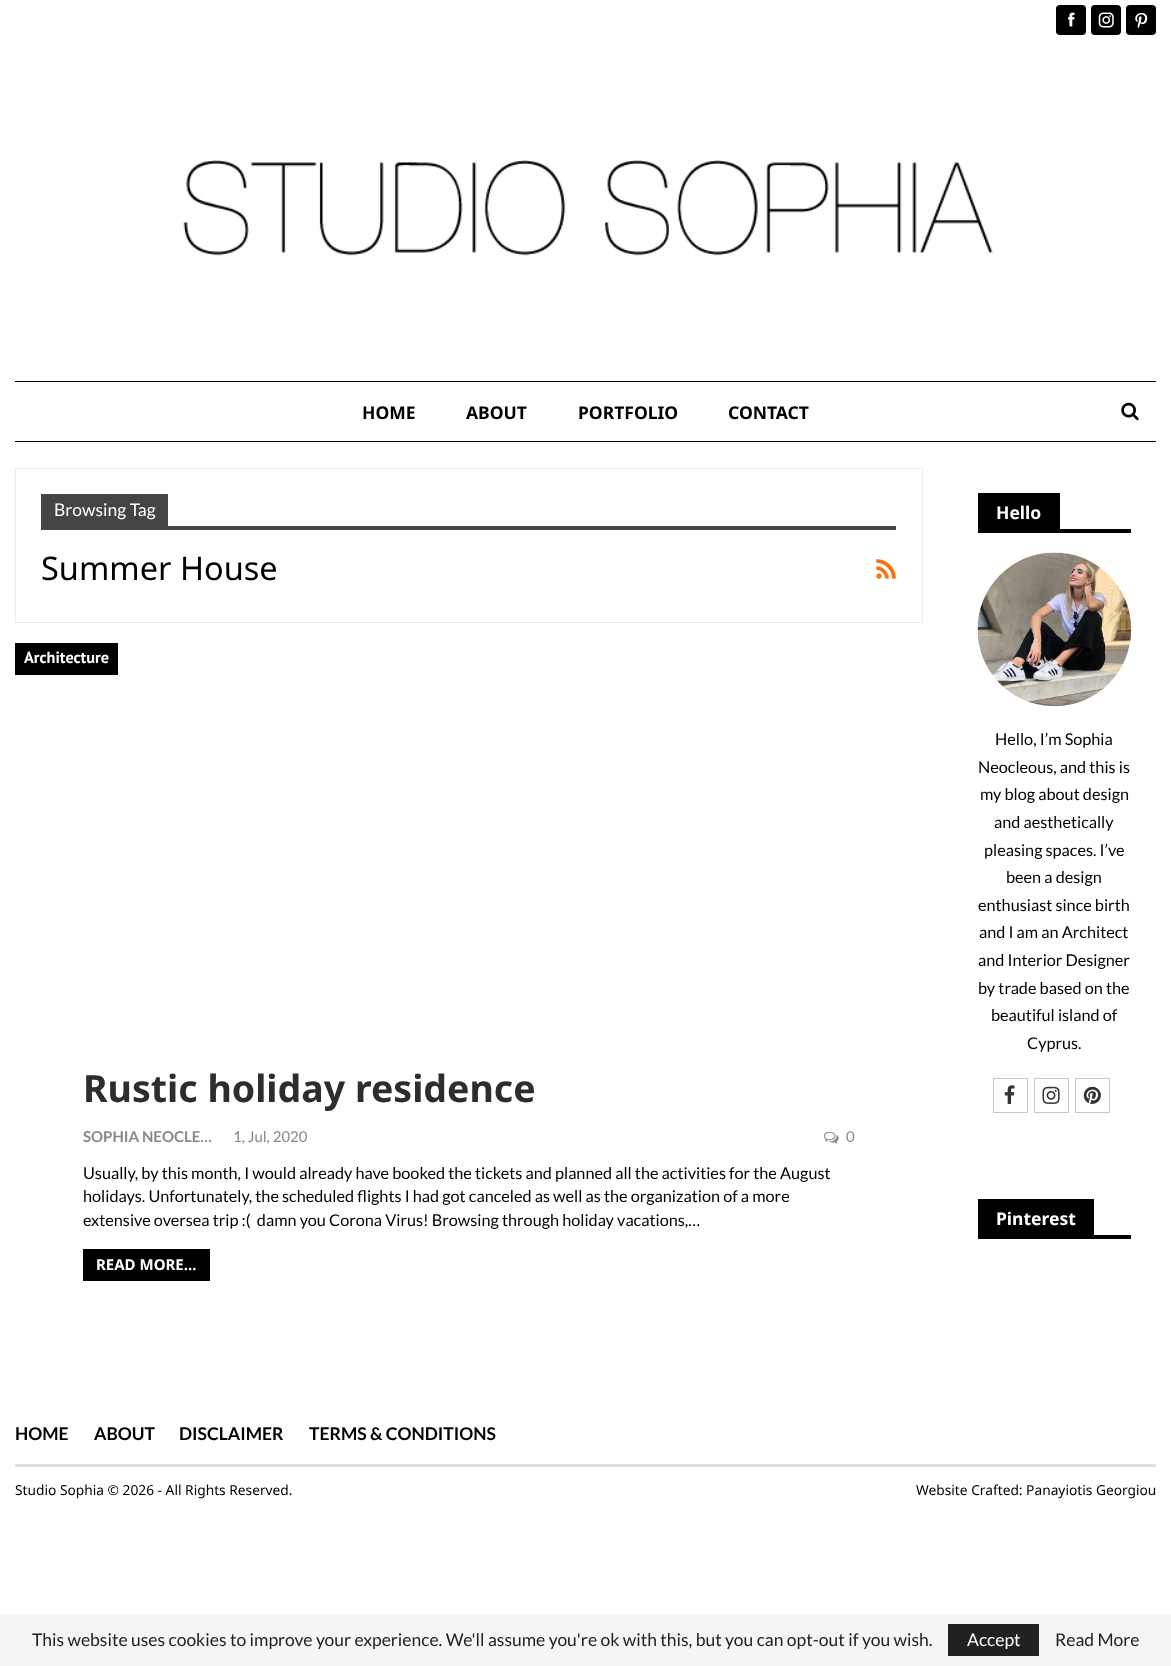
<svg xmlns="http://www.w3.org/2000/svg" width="1171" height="1666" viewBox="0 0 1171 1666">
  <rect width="100%" height="100%" fill="rgb(255,255,255)"/>
  <rect x="1056" y="5" width="30" height="30" rx="4" fill="rgb(0,0,0)"/>
  <image x="1068" y="12" width="7" height="15" href="pic1.png"/>
  <rect x="1091" y="5" width="30" height="30" rx="4" fill="rgb(0,0,0)"/>
  <image x="1098" y="12" width="16" height="16" href="pic2.png"/>
  <rect x="1126" y="5" width="30" height="30" rx="4" fill="rgb(0,0,0)"/>
  <image x="1135" y="12" width="13" height="16" href="pic3.png"/>
  <image x="183" y="160" width="810" height="96" href="pic4.png"/>
  <rect x="15" y="381" width="1141" height="1" fill="rgb(0,0,0)"/>
  <rect x="15" y="441" width="1141" height="1" fill="rgb(0,0,0)"/>
  <g font-family="Noto Sans" font-size="17.5" font-weight="bold" fill="rgb(0,0,0)">
    <text x="362" y="419">HOME</text>
    <text x="466" y="419">ABOUT</text>
    <text x="578" y="419">PORTFOLIO</text>
    <text x="728" y="419">CONTACT</text>
  </g>
  <image x="1121" y="402" width="18" height="19" href="pic5.png"/>
  <rect x="15.5" y="468.5" width="907" height="154" fill="none" stroke="rgb(235,235,235)"/>
  <rect x="41" y="494" width="127" height="32" fill="rgb(68,68,68)"/>
  <text x="54" y="516" font-family="Lato" font-size="17.5" fill="rgb(255,255,255)">Browsing Tag</text>
  <rect x="41" y="526" width="855" height="4" fill="rgb(68,68,68)"/>
  <text x="41" y="580" font-family="Noto Sans" font-size="32.5" fill="rgb(0,0,0)">Summer House</text>
  <image x="876" y="559" width="20" height="20" href="pic6.png"/>
  <rect x="15" y="643" width="103" height="32" fill="rgb(0,0,0)"/>
  <text x="24" y="663" font-family="PT Sans" font-size="16.25" font-weight="bold" fill="rgb(255,255,255)">Architecture</text>
  <text x="83" y="1102" font-family="Noto Sans" font-size="37.5" font-weight="bold" fill="rgb(45,45,45)">Rustic holiday residence</text>
  <text x="83" y="1142" font-family="Lato" font-size="15" font-weight="bold" fill="rgb(136,136,136)">SOPHIA NEOCLE…</text>
  <text x="233" y="1142" font-family="Lato" font-size="15" fill="rgb(136,136,136)">1, Jul, 2020</text>
  <image x="823" y="1131" width="16" height="13" href="pic7.png"/>
  <text x="846" y="1142" font-family="Lato" font-size="15" fill="rgb(136,136,136)">0</text>
  <g font-family="Lato" font-size="16.25" fill="rgb(0,0,0)">
    <text xml:space="preserve"><tspan x="83" y="1179">Usually, by this month, I would already have booked the tickets and planned all the activities for the August</tspan><tspan x="83" y="1202">holidays. Unfortunately, the scheduled flights I had got canceled as well as the organization of a more</tspan><tspan x="83" y="1226">extensive oversea trip :(  damn you Corona Virus! Browsing through holiday vacations,…</tspan></text>
  </g>
  <rect x="83" y="1249" width="127" height="32" fill="rgb(0,0,0)"/>
  <text x="96" y="1270" font-family="Noto Sans" font-size="15" font-weight="bold" fill="rgb(255,255,255)">READ MORE...</text>
  <rect x="978" y="493" width="82" height="40" fill="rgb(0,0,0)"/>
  <text x="996" y="519" font-family="Noto Sans" font-size="17.5" font-weight="bold" fill="rgb(255,255,255)">Hello</text>
  <rect x="1060" y="529" width="71" height="4" fill="rgb(0,0,0)"/>
  <image x="977" y="552" width="155" height="155" href="pic8.png"/>
  <g font-family="Lato" font-size="16.25" fill="rgb(0,0,0)">
    <text x="995" y="745">Hello, I’m Sophia</text>
    <text x="978" y="773">Neocleous, and this is</text>
    <text x="980" y="800">my blog about design</text>
    <text x="994" y="828">and aesthetically</text>
    <text x="984" y="856">pleasing spaces. I’ve</text>
    <text x="1006" y="883">been a design</text>
    <text x="978" y="911">enthusiast since birth</text>
    <text x="979" y="938">and I am an Architect</text>
    <text>
      <tspan x="978" y="966">and Interior Designer</tspan>
      <tspan x="978" y="994">by trade based on the</tspan>
    </text>
    <text x="991" y="1021">beautiful island of</text>
    <text x="1027" y="1049">Cyprus.</text>
  </g>
  <rect x="993.5" y="1078.5" width="34" height="34" fill="none" stroke="rgb(199,199,199)"/>
  <image x="1004" y="1085" width="11" height="19" href="pic9.png"/>
  <rect x="1034.5" y="1078.5" width="34" height="34" fill="none" stroke="rgb(199,199,199)"/>
  <image x="1042" y="1086" width="18" height="18" href="pic10.png"/>
  <rect x="1075.5" y="1078.5" width="34" height="34" fill="none" stroke="rgb(199,199,199)"/>
  <image x="1083" y="1086" width="18" height="18" href="pic11.png"/>
  <rect x="978" y="1199" width="116" height="40" fill="rgb(0,0,0)"/>
  <text x="996" y="1225" font-family="Noto Sans" font-size="17.5" font-weight="bold" fill="rgb(255,255,255)">Pinterest</text>
  <rect x="1094" y="1235" width="37" height="4" fill="rgb(0,0,0)"/>
  <rect x="15" y="1464" width="1141" height="3" fill="rgb(224,224,224)"/>
  <g font-family="Lato" font-size="17.5" font-weight="bold" fill="rgb(0,0,0)">
    <text x="15" y="1440">HOME</text>
    <text x="94" y="1440">ABOUT</text>
    <text x="179" y="1440">DISCLAIMER</text>
    <text x="309" y="1440">TERMS &amp; CONDITIONS</text>
  </g>
  <g font-family="Noto Sans" font-size="13.75" fill="rgb(0,0,0)">
    <text x="15" y="1495">Studio Sophia © 2026 - All Rights Reserved.</text>
    <text x="916" y="1495">Website Crafted: Panayiotis Georgiou</text>
  </g>
  <rect x="0" y="1614" width="1171" height="52" fill="rgb(245,245,245)"/>
  <text x="32" y="1646" font-family="Lato" font-size="17.5" fill="rgb(33,33,33)">This website uses cookies to improve your experience. We'll assume you're ok with this, but you can opt-out if you wish.</text>
  <rect x="948" y="1624" width="91" height="32" fill="rgb(33,33,33)"/>
  <text x="967" y="1646" font-family="Lato" font-size="17.5" fill="rgb(255,255,255)">Accept</text>
  <text x="1055" y="1646" font-family="Lato" font-size="17.5" fill="rgb(33,33,33)">Read More</text>
</svg>
